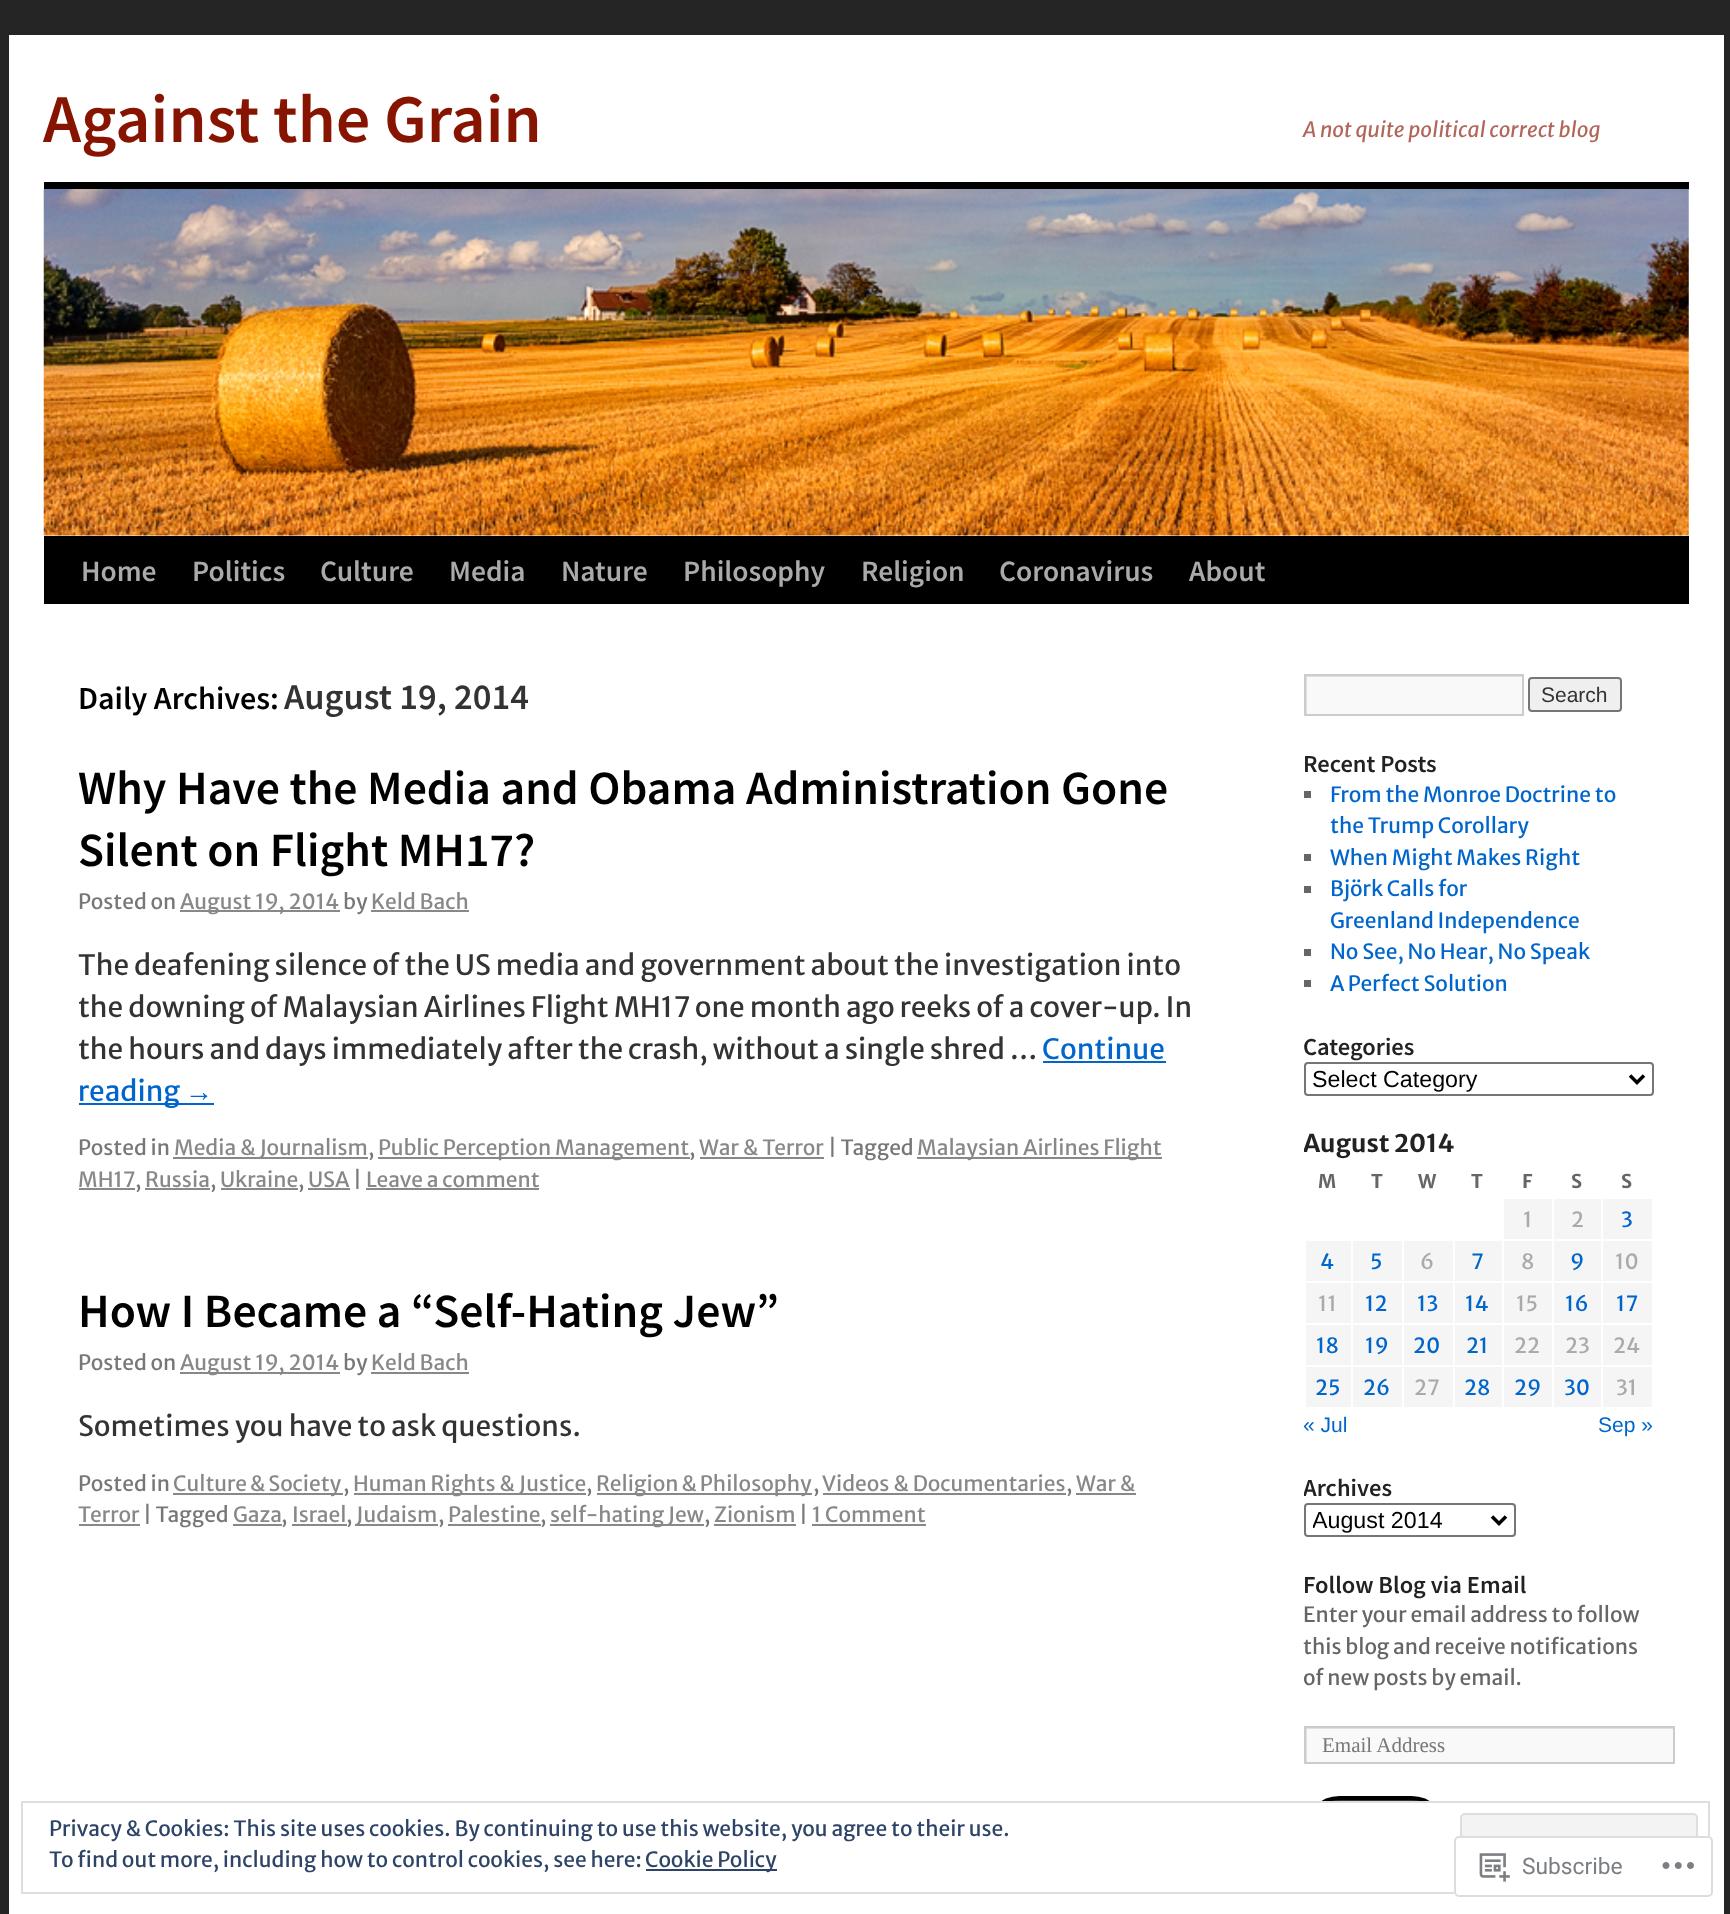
<svg xmlns="http://www.w3.org/2000/svg" width="1730" height="1914" viewBox="0 0 1730 1914">
  <defs>
    <clipPath id="clip1"><rect x="1306" y="676" width="217" height="38"/></clipPath>
    <clipPath id="clip2"><rect x="1304" y="674" width="385" height="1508"/></clipPath>
    <clipPath id="clip3"><rect x="1313" y="1505" width="173" height="30"/></clipPath>
    <clipPath id="clip4"><rect x="1306" y="1727" width="367" height="35"/></clipPath>
  </defs>
  <rect width="100%" height="100%" fill="rgb(37,37,37)"/>
  <rect x="9" y="35" width="1715" height="1879" fill="rgb(255,255,255)"/>
  <text x="43" y="142" font-family="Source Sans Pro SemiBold" font-size="68.25" font-weight="600" fill="rgb(135,20,0)">Against the Grain</text>
  <text x="1303" y="137" font-family="Merriweather Sans" font-size="21" font-style="italic" fill="rgb(177,102,89)">A not quite political correct blog</text>
  <rect x="44" y="182" width="1645" height="7" fill="rgb(0,0,0)"/>
  <rect x="44" y="536" width="1645" height="68" fill="rgb(0,0,0)"/>
  <image x="43" y="189" width="1646" height="347" href="pic1.png"/>
  <g font-family="Source Sans Pro SemiBold" font-size="29.5" font-weight="600" fill="rgb(170,170,170)">
    <text x="81" y="581">Home</text>
    <text x="192" y="581">Politics</text>
    <text x="320" y="581">Culture</text>
    <text x="449" y="581">Media</text>
    <text x="561" y="581">Nature</text>
    <text x="683" y="581">Philosophy</text>
    <text x="861" y="581">Religion</text>
    <text x="999" y="581">Coronavirus</text>
    <text x="1189" y="581">About</text>
  </g>
  <text x="78" y="709" font-family="Source Sans Pro SemiBold" font-size="32" font-weight="600" fill="rgb(0,0,0)">Daily Archives:</text>
  <text x="284" y="709" font-family="Source Sans Pro SemiBold" font-size="36.5" font-weight="600" fill="rgb(51,51,51)">August 19, 2014</text>
  <g font-family="Source Sans Pro SemiBold" font-size="47.75" font-weight="600" fill="rgb(0,0,0)">
    <text>
      <tspan x="78" y="804">Why Have the Media and Obama Administration Gone</tspan>
      <tspan x="78" y="866">Silent on Flight MH17?</tspan>
    </text>
  </g>
  <text x="78" y="909" font-family="Merriweather Sans" font-size="21" fill="rgb(119,119,119)">Posted on</text>
  <rect x="180" y="910" width="160" height="2" fill="rgb(136,136,136)"/>
  <text x="180" y="909" font-family="Merriweather Sans" font-size="21" fill="rgb(136,136,136)">August 19, 2014</text>
  <text x="343" y="909" font-family="Merriweather Sans" font-size="21" fill="rgb(119,119,119)">by</text>
  <text x="371" y="909" font-family="Merriweather Sans" font-size="21" fill="rgb(136,136,136)">Keld Bach</text>
  <rect x="371" y="910" width="98" height="2" fill="rgb(136,136,136)"/>
  <g font-family="Merriweather Sans" font-size="28" fill="rgb(51,51,51)">
    <text>
      <tspan x="78" y="975">The deafening silence of the US media and government about the investigation into</tspan>
      <tspan x="78" y="1017">the downing of Malaysian Airlines Flight MH17 one month ago reeks of a cover-up. In</tspan>
      <tspan x="78" y="1059">the hours and days immediately after the crash, without a single shred …</tspan>
    </text>
  </g>
  <text x="1042" y="1059" font-family="Merriweather Sans" font-size="28" fill="rgb(0,102,204)">Continue</text>
  <rect x="1043" y="1061" width="123" height="2" fill="rgb(0,102,204)"/>
  <rect x="79" y="1103" width="135" height="2" fill="rgb(0,102,204)"/>
  <text x="78" y="1101" font-family="Merriweather Sans" font-size="28" fill="rgb(0,102,204)">reading</text>
  <text x="185" y="1101" font-family="Liberation Sans" font-size="28" fill="rgb(0,102,204)">→</text>
  <text x="78" y="1155" font-family="Merriweather Sans" font-size="21" fill="rgb(119,119,119)">Posted in</text>
  <rect x="173" y="1157" width="195" height="2" fill="rgb(136,136,136)"/>
  <text x="174" y="1155" font-family="Merriweather Sans" font-size="21" fill="rgb(136,136,136)">Media &amp; Journalism</text>
  <text x="368" y="1155" font-family="Merriweather Sans" font-size="21" fill="rgb(119,119,119)">,</text>
  <rect x="378" y="1157" width="312" height="2" fill="rgb(136,136,136)"/>
  <text x="378" y="1155" font-family="Merriweather Sans" font-size="21" fill="rgb(136,136,136)">Public Perception Management</text>
  <text x="689" y="1155" font-family="Merriweather Sans" font-size="21" fill="rgb(119,119,119)">,</text>
  <rect x="700" y="1157" width="124" height="2" fill="rgb(136,136,136)"/>
  <text x="699" y="1155" font-family="Merriweather Sans" font-size="21" fill="rgb(136,136,136)">War &amp; Terror</text>
  <text x="828" y="1155" font-family="Merriweather Sans" font-size="21" fill="rgb(119,119,119)">| Tagged</text>
  <rect x="917" y="1157" width="245" height="2" fill="rgb(136,136,136)"/>
  <g font-family="Merriweather Sans" font-size="21" fill="rgb(136,136,136)">
    <text x="917" y="1155">Malaysian Airlines Flight</text>
    <text x="78" y="1187">MH17</text>
  </g>
  <text x="135" y="1187" font-family="Merriweather Sans" font-size="21" fill="rgb(119,119,119)">,</text>
  <rect x="79" y="1188" width="56" height="2" fill="rgb(136,136,136)"/>
  <text x="145" y="1187" font-family="Merriweather Sans" font-size="21" fill="rgb(136,136,136)">Russia</text>
  <text x="210" y="1187" font-family="Merriweather Sans" font-size="21" fill="rgb(119,119,119)">,</text>
  <rect x="145" y="1188" width="65" height="2" fill="rgb(136,136,136)"/>
  <text x="220" y="1187" font-family="Merriweather Sans" font-size="21" fill="rgb(136,136,136)">Ukraine</text>
  <text x="298" y="1187" font-family="Merriweather Sans" font-size="21" fill="rgb(119,119,119)">,</text>
  <rect x="221" y="1188" width="77" height="2" fill="rgb(136,136,136)"/>
  <rect x="308" y="1188" width="42" height="2" fill="rgb(136,136,136)"/>
  <text x="308" y="1187" font-family="Merriweather Sans" font-size="21" fill="rgb(136,136,136)">USA</text>
  <text x="353" y="1187" font-family="Merriweather Sans" font-size="21" fill="rgb(119,119,119)">|</text>
  <text x="366" y="1187" font-family="Merriweather Sans" font-size="21" fill="rgb(136,136,136)">Leave a comment</text>
  <rect x="366" y="1188" width="173" height="2" fill="rgb(136,136,136)"/>
  <text x="78" y="1327" font-family="Source Sans Pro SemiBold" font-size="47.75" font-weight="600" fill="rgb(0,0,0)">How I Became a “Self-Hating Jew”</text>
  <text x="78" y="1370" font-family="Merriweather Sans" font-size="21" fill="rgb(119,119,119)">Posted on</text>
  <rect x="180" y="1372" width="160" height="2" fill="rgb(136,136,136)"/>
  <text x="180" y="1370" font-family="Merriweather Sans" font-size="21" fill="rgb(136,136,136)">August 19, 2014</text>
  <text x="343" y="1370" font-family="Merriweather Sans" font-size="21" fill="rgb(119,119,119)">by</text>
  <text x="371" y="1370" font-family="Merriweather Sans" font-size="21" fill="rgb(136,136,136)">Keld Bach</text>
  <rect x="371" y="1372" width="98" height="2" fill="rgb(136,136,136)"/>
  <text x="78" y="1436" font-family="Merriweather Sans" font-size="28" fill="rgb(51,51,51)">Sometimes you have to ask questions.</text>
  <text x="78" y="1491" font-family="Merriweather Sans" font-size="21" fill="rgb(119,119,119)">Posted in</text>
  <rect x="173" y="1493" width="170" height="2" fill="rgb(136,136,136)"/>
  <text x="173" y="1491" word-spacing="-1" font-family="Merriweather Sans" font-size="21" fill="rgb(136,136,136)">Culture &amp; Society</text>
  <text x="343" y="1491" font-family="Merriweather Sans" font-size="21" fill="rgb(119,119,119)">,</text>
  <rect x="354" y="1493" width="232" height="2" fill="rgb(136,136,136)"/>
  <text x="353" y="1491" font-family="Merriweather Sans" font-size="21" fill="rgb(136,136,136)">Human Rights &amp; Justice</text>
  <text x="586" y="1491" font-family="Merriweather Sans" font-size="21" fill="rgb(119,119,119)">,</text>
  <rect x="597" y="1493" width="215" height="2" fill="rgb(136,136,136)"/>
  <text x="596" y="1491" word-spacing="-1" font-family="Merriweather Sans" font-size="21" fill="rgb(136,136,136)">Religion &amp; Philosophy</text>
  <text x="813" y="1491" font-family="Merriweather Sans" font-size="21" fill="rgb(119,119,119)">,</text>
  <text x="822" y="1491" font-family="Merriweather Sans" font-size="21" fill="rgb(136,136,136)">Videos &amp; Documentaries</text>
  <text x="1066" y="1491" font-family="Merriweather Sans" font-size="21" fill="rgb(119,119,119)">,</text>
  <rect x="823" y="1493" width="243" height="2" fill="rgb(136,136,136)"/>
  <rect x="1076" y="1493" width="60" height="2" fill="rgb(136,136,136)"/>
  <g font-family="Merriweather Sans" font-size="21" fill="rgb(136,136,136)">
    <text x="1076" y="1491">War &amp;</text>
    <text x="78" y="1522">Terror</text>
  </g>
  <rect x="79" y="1524" width="61" height="2" fill="rgb(136,136,136)"/>
  <text x="143" y="1522" font-family="Merriweather Sans" font-size="21" fill="rgb(119,119,119)">| Tagged</text>
  <text x="233" y="1522" font-family="Merriweather Sans" font-size="21" fill="rgb(136,136,136)">Gaza</text>
  <text x="281" y="1522" font-family="Merriweather Sans" font-size="21" fill="rgb(119,119,119)">,</text>
  <rect x="233" y="1524" width="49" height="2" fill="rgb(136,136,136)"/>
  <text x="292" y="1522" font-family="Merriweather Sans" font-size="21" fill="rgb(136,136,136)">Israel</text>
  <text x="346" y="1522" font-family="Merriweather Sans" font-size="21" fill="rgb(119,119,119)">,</text>
  <rect x="292" y="1524" width="55" height="2" fill="rgb(136,136,136)"/>
  <rect x="355" y="1524" width="83" height="2" fill="rgb(136,136,136)"/>
  <text x="356" y="1522" font-family="Merriweather Sans" font-size="21" fill="rgb(136,136,136)">Judaism</text>
  <text x="438" y="1522" font-family="Merriweather Sans" font-size="21" fill="rgb(119,119,119)">,</text>
  <text x="448" y="1522" font-family="Merriweather Sans" font-size="21" fill="rgb(136,136,136)">Palestine</text>
  <text x="540" y="1522" font-family="Merriweather Sans" font-size="21" fill="rgb(119,119,119)">,</text>
  <rect x="448" y="1524" width="93" height="2" fill="rgb(136,136,136)"/>
  <rect x="550" y="1524" width="154" height="2" fill="rgb(136,136,136)"/>
  <text x="550" y="1522" font-family="Merriweather Sans" font-size="21" fill="rgb(136,136,136)">self-hating Jew</text>
  <text x="704" y="1522" font-family="Merriweather Sans" font-size="21" fill="rgb(119,119,119)">,</text>
  <rect x="714" y="1524" width="82" height="2" fill="rgb(136,136,136)"/>
  <text x="714" y="1522" font-family="Merriweather Sans" font-size="21" fill="rgb(136,136,136)">Zionism</text>
  <text x="799" y="1522" font-family="Merriweather Sans" font-size="21" fill="rgb(119,119,119)">|</text>
  <text x="812" y="1522" font-family="Merriweather Sans" font-size="21" fill="rgb(136,136,136)">1 Comment</text>
  <rect x="812" y="1524" width="114" height="2" fill="rgb(136,136,136)"/>
  <rect x="1307" y="677" width="215" height="37" fill="rgb(249,249,249)"/>
  <g clip-path="url(#clip1)">
    <path d="M1132 502H1696V887H1132ZM1307 677H1524V716H1307Z" fill="rgb(224,224,224)" fill-rule="evenodd"/>
  </g>
  <rect x="1305" y="675" width="218" height="40" fill="none" stroke="rgb(204,204,204)" stroke-width="2"/>
  <rect x="1529" y="678" width="92" height="33" rx="3" fill="rgb(239,239,239)" stroke="rgb(118,118,118)" stroke-width="2"/>
  <text x="1541" y="702" font-family="Liberation Sans" font-size="21" fill="rgb(51,51,51)">Search</text>
  <text x="1303" y="772" font-family="Source Sans Pro SemiBold" font-size="24.5" font-weight="600" fill="rgb(34,34,34)">Recent Posts</text>
  <rect x="1304" y="791" width="7" height="7" fill="rgb(102,102,102)"/>
  <g font-family="Merriweather Sans" font-size="21" fill="rgb(0,102,204)">
    <text>
      <tspan x="1330" y="802">From the Monroe Doctrine to</tspan>
      <tspan x="1330" y="833">the Trump Corollary</tspan>
    </text>
  </g>
  <rect x="1304" y="854" width="7" height="7" fill="rgb(102,102,102)"/>
  <text x="1330" y="865" font-family="Merriweather Sans" font-size="21" fill="rgb(0,102,204)">When Might Makes Right</text>
  <rect x="1304" y="886" width="7" height="7" fill="rgb(102,102,102)"/>
  <g font-family="Merriweather Sans" font-size="21" fill="rgb(0,102,204)">
    <text>
      <tspan x="1330" y="896">Björk Calls for</tspan>
      <tspan x="1330" y="928">Greenland Independence</tspan>
    </text>
  </g>
  <rect x="1304" y="949" width="7" height="7" fill="rgb(102,102,102)"/>
  <text x="1330" y="959" font-family="Merriweather Sans" font-size="21" fill="rgb(0,102,204)">No See, No Hear, No Speak</text>
  <rect x="1304" y="980" width="7" height="7" fill="rgb(102,102,102)"/>
  <text x="1330" y="991" font-family="Merriweather Sans" font-size="21" fill="rgb(0,102,204)">A Perfect Solution</text>
  <text x="1303" y="1055" font-family="Source Sans Pro SemiBold" font-size="24.5" font-weight="600" fill="rgb(34,34,34)">Categories</text>
  <rect x="1305" y="1063" width="348" height="32" rx="3" fill="none" stroke="rgb(118,118,118)" stroke-width="2"/>
  <path d="M1630 1075.5L1637 1082.5L1644 1075.5" fill="none" stroke="rgb(0,0,0)" stroke-width="3.5"/>
  <text x="1312" y="1087" font-family="Liberation Sans" font-size="23.25" fill="rgb(0,0,0)">Select Category</text>
  <g clip-path="url(#clip2)">
    <text x="1303" y="1152" font-family="Merriweather Sans" font-size="24.5" font-weight="bold" fill="rgb(34,34,34)">August 2014</text>
  </g>
  <g font-family="Merriweather Sans" font-size="19" font-weight="bold" fill="rgb(102,102,102)">
    <text x="1318" y="1188">M</text>
    <text x="1371" y="1188">T</text>
    <text x="1418" y="1188">W</text>
    <text x="1471" y="1188">T</text>
    <text x="1522" y="1188">F</text>
    <text x="1571" y="1188">S</text>
    <text x="1621" y="1188">S</text>
  </g>
  <rect x="1504" y="1199" width="48" height="40" fill="rgb(245,245,245)"/>
  <text x="1523" y="1227" font-family="Merriweather Sans" font-size="21" fill="rgb(170,170,170)">1</text>
  <rect x="1554" y="1199" width="47" height="40" fill="rgb(245,245,245)"/>
  <text x="1571" y="1227" font-family="Merriweather Sans" font-size="21" fill="rgb(170,170,170)">2</text>
  <rect x="1603" y="1199" width="49" height="40" fill="rgb(245,245,245)"/>
  <text x="1621" y="1227" font-family="Merriweather Sans" font-size="21" fill="rgb(0,102,204)">3</text>
  <rect x="1306" y="1241" width="45" height="40" fill="rgb(245,245,245)"/>
  <text x="1320" y="1269" font-family="Merriweather Sans" font-size="21" fill="rgb(0,102,204)">4</text>
  <rect x="1353" y="1241" width="49" height="40" fill="rgb(245,245,245)"/>
  <text x="1370" y="1269" font-family="Merriweather Sans" font-size="21" fill="rgb(0,102,204)">5</text>
  <rect x="1404" y="1241" width="49" height="40" fill="rgb(245,245,245)"/>
  <text x="1420" y="1269" font-family="Merriweather Sans" font-size="21" fill="rgb(170,170,170)">6</text>
  <rect x="1455" y="1241" width="47" height="40" fill="rgb(245,245,245)"/>
  <text x="1471" y="1269" font-family="Merriweather Sans" font-size="21" fill="rgb(0,102,204)">7</text>
  <rect x="1504" y="1241" width="48" height="40" fill="rgb(245,245,245)"/>
  <text x="1521" y="1269" font-family="Merriweather Sans" font-size="21" fill="rgb(170,170,170)">8</text>
  <rect x="1554" y="1241" width="47" height="40" fill="rgb(245,245,245)"/>
  <text x="1570" y="1269" font-family="Merriweather Sans" font-size="21" fill="rgb(0,102,204)">9</text>
  <rect x="1603" y="1241" width="49" height="40" fill="rgb(245,245,245)"/>
  <text x="1615" y="1269" font-family="Merriweather Sans" font-size="21" fill="rgb(170,170,170)">10</text>
  <rect x="1306" y="1283" width="45" height="40" fill="rgb(245,245,245)"/>
  <text x="1318" y="1311" font-family="Merriweather Sans" font-size="21" fill="rgb(170,170,170)">11</text>
  <rect x="1353" y="1283" width="49" height="40" fill="rgb(245,245,245)"/>
  <text x="1365" y="1311" font-family="Merriweather Sans" font-size="21" fill="rgb(0,102,204)">12</text>
  <rect x="1404" y="1283" width="49" height="40" fill="rgb(245,245,245)"/>
  <text x="1417" y="1311" font-family="Merriweather Sans" font-size="21" fill="rgb(0,102,204)">13</text>
  <rect x="1455" y="1283" width="47" height="40" fill="rgb(245,245,245)"/>
  <text x="1465" y="1311" font-family="Merriweather Sans" font-size="21" fill="rgb(0,102,204)">14</text>
  <rect x="1504" y="1283" width="48" height="40" fill="rgb(245,245,245)"/>
  <text x="1516" y="1311" font-family="Merriweather Sans" font-size="21" fill="rgb(170,170,170)">15</text>
  <rect x="1554" y="1283" width="47" height="40" fill="rgb(245,245,245)"/>
  <text x="1565" y="1311" font-family="Merriweather Sans" font-size="21" fill="rgb(0,102,204)">16</text>
  <rect x="1603" y="1283" width="49" height="40" fill="rgb(245,245,245)"/>
  <text x="1616" y="1311" font-family="Merriweather Sans" font-size="21" fill="rgb(0,102,204)">17</text>
  <rect x="1306" y="1325" width="45" height="40" fill="rgb(245,245,245)"/>
  <text x="1316" y="1353" font-family="Merriweather Sans" font-size="21" fill="rgb(0,102,204)">18</text>
  <rect x="1353" y="1325" width="49" height="40" fill="rgb(245,245,245)"/>
  <text x="1365" y="1353" font-family="Merriweather Sans" font-size="21" fill="rgb(0,102,204)">19</text>
  <rect x="1404" y="1325" width="49" height="40" fill="rgb(245,245,245)"/>
  <text x="1413" y="1353" font-family="Merriweather Sans" font-size="21" fill="rgb(0,102,204)">20</text>
  <rect x="1455" y="1325" width="47" height="40" fill="rgb(245,245,245)"/>
  <text x="1466" y="1353" font-family="Merriweather Sans" font-size="21" fill="rgb(0,102,204)">21</text>
  <rect x="1504" y="1325" width="48" height="40" fill="rgb(245,245,245)"/>
  <text x="1514" y="1353" font-family="Merriweather Sans" font-size="21" fill="rgb(170,170,170)">22</text>
  <rect x="1554" y="1325" width="47" height="40" fill="rgb(245,245,245)"/>
  <text x="1565" y="1353" font-family="Merriweather Sans" font-size="21" fill="rgb(170,170,170)">23</text>
  <rect x="1603" y="1325" width="49" height="40" fill="rgb(245,245,245)"/>
  <text x="1613" y="1353" font-family="Merriweather Sans" font-size="21" fill="rgb(170,170,170)">24</text>
  <rect x="1306" y="1367" width="45" height="40" fill="rgb(245,245,245)"/>
  <text x="1315" y="1395" font-family="Merriweather Sans" font-size="21" fill="rgb(0,102,204)">25</text>
  <rect x="1353" y="1367" width="49" height="40" fill="rgb(245,245,245)"/>
  <text x="1363" y="1395" font-family="Merriweather Sans" font-size="21" fill="rgb(0,102,204)">26</text>
  <rect x="1404" y="1367" width="49" height="40" fill="rgb(245,245,245)"/>
  <text x="1414" y="1395" font-family="Merriweather Sans" font-size="21" fill="rgb(170,170,170)">27</text>
  <rect x="1455" y="1367" width="47" height="40" fill="rgb(245,245,245)"/>
  <text x="1464" y="1395" font-family="Merriweather Sans" font-size="21" fill="rgb(0,102,204)">28</text>
  <rect x="1504" y="1367" width="48" height="40" fill="rgb(245,245,245)"/>
  <text x="1514" y="1395" font-family="Merriweather Sans" font-size="21" fill="rgb(0,102,204)">29</text>
  <rect x="1554" y="1367" width="47" height="40" fill="rgb(245,245,245)"/>
  <text x="1564" y="1395" font-family="Merriweather Sans" font-size="21" fill="rgb(0,102,204)">30</text>
  <rect x="1603" y="1367" width="49" height="40" fill="rgb(245,245,245)"/>
  <text x="1616" y="1395" font-family="Merriweather Sans" font-size="21" fill="rgb(170,170,170)">31</text>
  <g font-family="Liberation Sans" font-size="21" fill="rgb(0,102,204)">
    <text x="1303" y="1432">« Jul</text>
    <text x="1598" y="1432">Sep »</text>
  </g>
  <g clip-path="url(#clip2)">
    <text x="1303" y="1496" font-family="Source Sans Pro SemiBold" font-size="24.5" font-weight="600" fill="rgb(34,34,34)">Archives</text>
  </g>
  <rect x="1305" y="1504" width="210" height="32" rx="3" fill="none" stroke="rgb(118,118,118)" stroke-width="2"/>
  <path d="M1492 1516.5L1499 1523.5L1506 1516.5" fill="none" stroke="rgb(0,0,0)" stroke-width="3.5"/>
  <g clip-path="url(#clip3)">
    <text x="1312" y="1528" font-family="Liberation Sans" font-size="23.25" fill="rgb(0,0,0)">August 2014</text>
  </g>
  <text x="1303" y="1593" font-family="Source Sans Pro SemiBold" font-size="24.5" font-weight="600" fill="rgb(34,34,34)">Follow Blog via Email</text>
  <g font-family="Merriweather Sans" font-size="21" fill="rgb(102,102,102)">
    <text>
      <tspan x="1303" y="1622">Enter your email address to follow</tspan>
      <tspan x="1303" y="1654">this blog and receive notifications</tspan>
      <tspan x="1303" y="1685">of new posts by email.</tspan>
    </text>
  </g>
  <rect x="1307" y="1729" width="366" height="33" fill="rgb(249,249,249)"/>
  <g clip-path="url(#clip4)">
    <path d="M1132 1554H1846V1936H1132ZM1307 1729H1675V1764H1307Z" fill="rgb(224,224,224)" fill-rule="evenodd"/>
  </g>
  <rect x="1305" y="1727" width="369" height="36" fill="none" stroke="rgb(204,204,204)" stroke-width="2"/>
  <text x="1322" y="1752" font-family="Liberation Serif" font-size="21" fill="rgb(119,119,119)">Email Address</text>
  <rect x="1306" y="1798" width="139" height="67" rx="33.5" fill="rgb(50,55,60)" stroke="rgb(0,0,0)" stroke-width="4"/>
  <rect x="1304" y="1803" width="143" height="64" fill="rgb(255,255,255)"/>
  <rect x="22" y="1802" width="1687" height="91" fill="none" stroke="rgb(222,222,222)" stroke-width="2"/>
  <text x="49" y="1836" font-family="Merriweather Sans" font-size="21" fill="rgb(46,68,103)">Privacy &amp; Cookies: This site uses cookies. By continuing to use this website, you agree to their use.</text>
  <rect x="1461" y="1814" width="236" height="66" rx="4" fill="rgb(243,243,243)" stroke="rgb(222,222,222)" stroke-width="2"/>
  <text x="49" y="1867" font-family="Merriweather Sans" font-size="21" fill="rgb(46,68,103)">To find out more, including how to control cookies, see here:</text>
  <rect x="646" y="1869" width="131" height="2" fill="rgb(46,68,103)"/>
  <text x="645" y="1867" font-family="Merriweather Sans" font-size="21" fill="rgb(46,68,103)">Cookie Policy</text>
  <rect x="1454" y="1836" width="259" height="61" rx="5" fill="rgba(255,255,255,0.98)"/>
  <rect x="1455" y="1837" width="257" height="59" rx="4" fill="none" stroke="rgba(220,220,222,0.98)" stroke-width="2"/>
  <image x="1479" y="1853" width="31" height="29" href="pic2.png"/>
  <text x="1522" y="1874" font-family="Roboto" font-size="22.75" fill="rgb(122,126,132)">Subscribe</text>
  <image x="1662" y="1862" width="32" height="7" href="pic3.png"/>
</svg>
